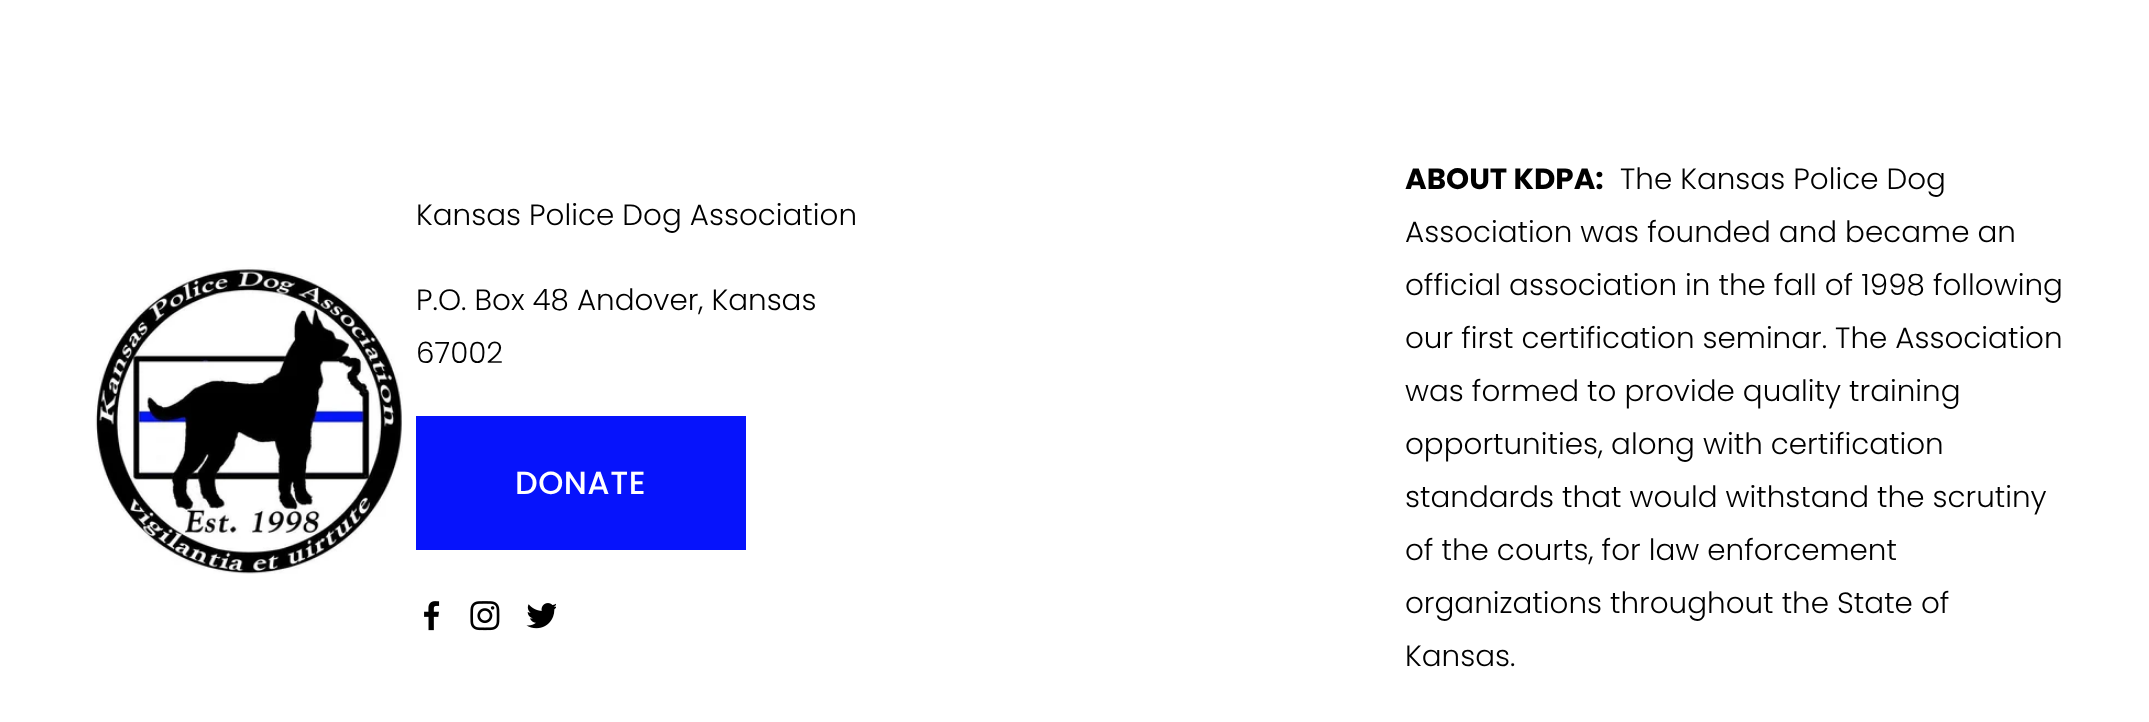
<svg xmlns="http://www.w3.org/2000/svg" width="2149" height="722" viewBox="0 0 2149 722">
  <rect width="100%" height="100%" fill="rgb(255,255,255)"/>
  <image x="95" y="267" width="308" height="307" href="pic1.png"/>
  <g font-family="Poppins" font-size="29.4" font-weight="300" fill="rgb(0,0,0)">
    <text x="416" y="225">Kansas Police Dog Association</text>
    <text>
      <tspan x="416" y="310">P.O. Box 48 Andover, Kansas</tspan>
      <tspan x="416" y="363">67002</tspan>
    </text>
  </g>
  <text x="1405" y="189" font-family="Poppins" font-size="29.4" font-weight="bold" fill="rgb(0,0,0)">ABOUT KDPA:</text>
  <g font-family="Poppins" font-size="29.4" font-weight="300" fill="rgb(0,0,0)">
    <text x="1620" y="189">The Kansas Police Dog</text>
    <text>
      <tspan x="1405" y="242">Association was founded and became an</tspan>
      <tspan x="1405" y="295">official association in the fall of 1998 following</tspan>
      <tspan x="1405" y="348">our first certification seminar. The Association</tspan>
      <tspan x="1405" y="401">was formed to provide quality training</tspan>
      <tspan x="1405" y="454">opportunities, along with certification</tspan>
      <tspan x="1405" y="507">standards that would withstand the scrutiny</tspan>
      <tspan x="1405" y="560">of the courts, for law enforcement</tspan>
      <tspan x="1405" y="613">organizations throughout the State of</tspan>
      <tspan x="1405" y="666">Kansas.</tspan>
    </text>
  </g>
  <rect x="416" y="416" width="330" height="134" fill="rgb(6,19,252)"/>
  <text x="515" y="494" font-family="Poppins" font-size="32" font-weight="500" letter-spacing="0.5" fill="rgb(255,255,255)">DONATE</text>
  <image x="424" y="601" width="16" height="30" href="pic2.png"/>
  <image x="470" y="601" width="30" height="30" href="pic3.png"/>
  <image x="526" y="603" width="30" height="26" href="pic4.png"/>
</svg>
